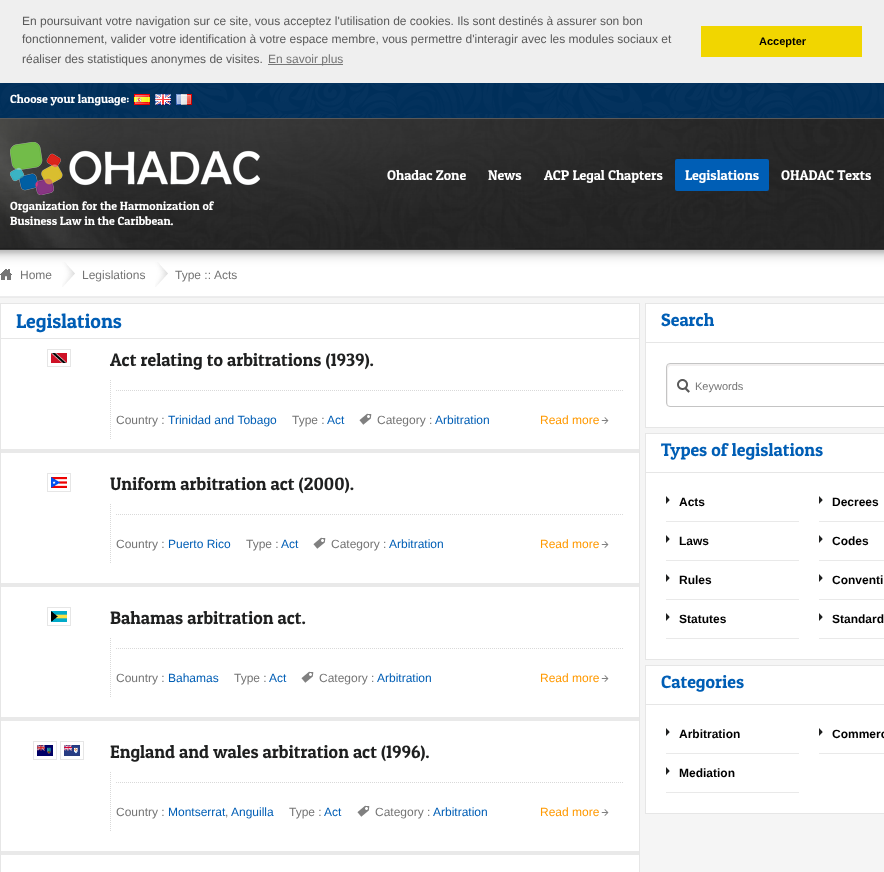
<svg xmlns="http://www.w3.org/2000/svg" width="884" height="872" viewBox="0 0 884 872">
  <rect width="100%" height="100%" fill="rgb(245,245,245)"/>
  <rect x="0" y="0" width="884" height="83" fill="rgb(239,239,239)"/>
  <g font-family="Liberation Sans" font-size="12" fill="rgb(90,90,90)">
    <text>
      <tspan x="22" y="25">En poursuivant votre navigation sur ce site, vous acceptez l'utilisation de cookies. Ils sont destinés à assurer son bon</tspan>
      <tspan x="22" y="43">fonctionnement, valider votre identification à votre espace membre, vous permettre d'interagir avec les modules sociaux et</tspan>
      <tspan x="22" y="63">réaliser des statistiques anonymes de visites.</tspan>
    </text>
  </g>
  <rect x="268" y="64" width="75" height="1" fill="rgb(120,120,120)"/>
  <text x="268" y="63" font-family="Liberation Sans" font-size="12" fill="rgb(117,117,117)">En savoir plus</text>
  <rect x="701" y="26" width="161" height="31" fill="rgb(241,214,0)"/>
  <text x="759" y="45" font-family="Liberation Sans" font-size="11" font-weight="bold" fill="rgb(0,0,0)">Accepter</text>
  <rect x="0" y="83" width="884" height="35" fill="rgb(0,94,181)"/>
  <image x="0" y="83" width="884" height="35" href="pic1.png"/>
  <text x="10" y="103" font-family="Patua One" font-size="12" fill="rgb(255,255,255)">Choose your language:</text>
  <image x="134" y="94" width="16" height="11" href="pic2.png"/>
  <image x="155" y="94" width="16" height="11" href="pic3.png"/>
  <image x="176" y="94" width="16" height="11" href="pic4.png"/>
  <image x="0" y="119" width="884" height="130" href="pic5.png"/>
  <rect x="0" y="118" width="884" height="1" fill="rgb(89,89,89)"/>
  <rect x="0" y="249" width="884" height="1" fill="rgb(55,55,55)"/>
  <image x="0" y="119" width="884" height="129" href="pic6.png"/>
  <g font-family="Patua One" font-size="14" fill="rgb(255,255,255)">
    <text x="387" y="180">Ohadac Zone</text>
    <text x="488" y="180">News</text>
    <text x="544" y="180">ACP Legal Chapters</text>
  </g>
  <rect x="675" y="159" width="94" height="32" rx="2" fill="rgb(0,94,181)"/>
  <g font-family="Patua One" font-size="14" fill="rgb(255,255,255)">
    <text x="685" y="180">Legislations</text>
    <text x="781" y="180">OHADAC Texts</text>
  </g>
  <image x="10" y="142" width="250" height="53" href="pic7.png"/>
  <g font-family="Patua One" font-size="12" fill="rgb(255,255,255)">
    <text>
      <tspan x="10" y="210">Organization for the Harmonization of</tspan>
      <tspan x="10" y="225">Business Law in the Caribbean.</tspan>
    </text>
  </g>
  <image x="0" y="250" width="884" height="48" href="pic8.png"/>
  <image x="0" y="269" width="12" height="11" href="pic9.png"/>
  <text x="20" y="279" font-family="Liberation Sans" font-size="12" fill="rgb(117,117,117)">Home</text>
  <image x="62" y="262" width="13" height="25" href="pic10.png"/>
  <text x="82" y="279" font-family="Liberation Sans" font-size="12" fill="rgb(117,117,117)">Legislations</text>
  <image x="155" y="262" width="13" height="25" href="pic10.png"/>
  <g font-family="Liberation Sans" font-size="12" fill="rgb(117,117,117)">
    <text x="175" y="279">Type ::</text>
    <text x="214" y="279">Acts</text>
  </g>
  <rect x="0.5" y="303.5" width="639" height="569" fill="rgb(255,255,255)" stroke="rgb(230,230,230)"/>
  <rect x="1" y="338" width="638" height="1" fill="rgb(230,230,230)"/>
  <text x="16" y="328" font-family="Patua One" font-size="20" fill="rgb(0,94,181)">Legislations</text>
  <rect x="47.5" y="349.5" width="23" height="17" fill="none" stroke="rgb(230,230,230)"/>
  <image x="51" y="353" width="16" height="10" href="pic11.png"/>
  <text x="110" y="366" font-family="Patua One" font-size="18" fill="rgb(31,32,32)">Act relating to arbitrations (1939).</text>
  <path d="M110.5 380V439" fill="none" stroke="rgb(217,217,217)" stroke-dasharray="1 1"/>
  <path d="M116 390.5H624" fill="none" stroke="rgb(217,217,217)" stroke-dasharray="1 1"/>
  <text x="116" y="424" font-family="Liberation Sans" font-size="12" fill="rgb(117,117,117)">Country :</text>
  <text x="168" y="424" font-family="Liberation Sans" font-size="12" fill="rgb(0,94,181)">Trinidad and Tobago</text>
  <text x="292" y="424" font-family="Liberation Sans" font-size="12" fill="rgb(117,117,117)">Type :</text>
  <text x="327" y="424" font-family="Liberation Sans" font-size="12" fill="rgb(0,94,181)">Act</text>
  <image x="359" y="413" width="13" height="12" href="pic12.png"/>
  <text x="377" y="424" font-family="Liberation Sans" font-size="12" fill="rgb(117,117,117)">Category :</text>
  <text x="435" y="424" font-family="Liberation Sans" font-size="12" fill="rgb(0,94,181)">Arbitration</text>
  <image x="601" y="417" width="8" height="7" href="pic13.png"/>
  <text x="540" y="424" font-family="Liberation Sans" font-size="12" fill="rgb(255,153,0)">Read more</text>
  <rect x="1" y="449" width="638" height="4" fill="rgb(233,233,233)"/>
  <rect x="47.5" y="473.5" width="23" height="18" fill="none" stroke="rgb(230,230,230)"/>
  <image x="51" y="477" width="16" height="11" href="pic14.png"/>
  <text x="110" y="490" font-family="Patua One" font-size="18" fill="rgb(31,32,32)">Uniform arbitration act (2000).</text>
  <path d="M110.5 504V563" fill="none" stroke="rgb(217,217,217)" stroke-dasharray="1 1"/>
  <path d="M116 514.5H624" fill="none" stroke="rgb(217,217,217)" stroke-dasharray="1 1"/>
  <text x="116" y="548" font-family="Liberation Sans" font-size="12" fill="rgb(117,117,117)">Country :</text>
  <text x="168" y="548" font-family="Liberation Sans" font-size="12" fill="rgb(0,94,181)">Puerto Rico</text>
  <text x="246" y="548" font-family="Liberation Sans" font-size="12" fill="rgb(117,117,117)">Type :</text>
  <text x="281" y="548" font-family="Liberation Sans" font-size="12" fill="rgb(0,94,181)">Act</text>
  <image x="313" y="537" width="13" height="12" href="pic12.png"/>
  <text x="331" y="548" font-family="Liberation Sans" font-size="12" fill="rgb(117,117,117)">Category :</text>
  <text x="389" y="548" font-family="Liberation Sans" font-size="12" fill="rgb(0,94,181)">Arbitration</text>
  <image x="601" y="541" width="8" height="7" href="pic13.png"/>
  <text x="540" y="548" font-family="Liberation Sans" font-size="12" fill="rgb(255,153,0)">Read more</text>
  <rect x="1" y="583" width="638" height="4" fill="rgb(233,233,233)"/>
  <rect x="47.5" y="607.5" width="23" height="18" fill="none" stroke="rgb(230,230,230)"/>
  <image x="51" y="611" width="16" height="11" href="pic15.png"/>
  <text x="110" y="624" font-family="Patua One" font-size="18" fill="rgb(31,32,32)">Bahamas arbitration act.</text>
  <path d="M110.5 638V697" fill="none" stroke="rgb(217,217,217)" stroke-dasharray="1 1"/>
  <path d="M116 648.5H624" fill="none" stroke="rgb(217,217,217)" stroke-dasharray="1 1"/>
  <text x="116" y="682" font-family="Liberation Sans" font-size="12" fill="rgb(117,117,117)">Country :</text>
  <text x="168" y="682" font-family="Liberation Sans" font-size="12" fill="rgb(0,94,181)">Bahamas</text>
  <text x="234" y="682" font-family="Liberation Sans" font-size="12" fill="rgb(117,117,117)">Type :</text>
  <text x="269" y="682" font-family="Liberation Sans" font-size="12" fill="rgb(0,94,181)">Act</text>
  <image x="301" y="671" width="13" height="12" href="pic12.png"/>
  <text x="319" y="682" font-family="Liberation Sans" font-size="12" fill="rgb(117,117,117)">Category :</text>
  <text x="377" y="682" font-family="Liberation Sans" font-size="12" fill="rgb(0,94,181)">Arbitration</text>
  <image x="601" y="675" width="8" height="7" href="pic13.png"/>
  <text x="540" y="682" font-family="Liberation Sans" font-size="12" fill="rgb(255,153,0)">Read more</text>
  <rect x="1" y="717" width="638" height="4" fill="rgb(233,233,233)"/>
  <rect x="33.5" y="741.5" width="23" height="18" fill="none" stroke="rgb(230,230,230)"/>
  <rect x="60.5" y="741.5" width="23" height="18" fill="none" stroke="rgb(230,230,230)"/>
  <image x="37" y="745" width="16" height="11" href="pic16.png"/>
  <image x="64" y="745" width="16" height="11" href="pic17.png"/>
  <text x="110" y="758" font-family="Patua One" font-size="18" fill="rgb(31,32,32)">England and wales arbitration act (1996).</text>
  <path d="M110.5 772V831" fill="none" stroke="rgb(217,217,217)" stroke-dasharray="1 1"/>
  <path d="M116 782.5H624" fill="none" stroke="rgb(217,217,217)" stroke-dasharray="1 1"/>
  <text x="116" y="816" font-family="Liberation Sans" font-size="12" fill="rgb(117,117,117)">Country :</text>
  <text x="168" y="816" font-family="Liberation Sans" font-size="12" fill="rgb(0,94,181)">Montserrat</text>
  <text x="225" y="816" font-family="Liberation Sans" font-size="12" fill="rgb(117,117,117)">,</text>
  <text x="231" y="816" font-family="Liberation Sans" font-size="12" fill="rgb(0,94,181)">Anguilla</text>
  <text x="289" y="816" font-family="Liberation Sans" font-size="12" fill="rgb(117,117,117)">Type :</text>
  <text x="324" y="816" font-family="Liberation Sans" font-size="12" fill="rgb(0,94,181)">Act</text>
  <image x="357" y="805" width="13" height="12" href="pic12.png"/>
  <text x="375" y="816" font-family="Liberation Sans" font-size="12" fill="rgb(117,117,117)">Category :</text>
  <text x="433" y="816" font-family="Liberation Sans" font-size="12" fill="rgb(0,94,181)">Arbitration</text>
  <image x="601" y="809" width="8" height="7" href="pic13.png"/>
  <text x="540" y="816" font-family="Liberation Sans" font-size="12" fill="rgb(255,153,0)">Read more</text>
  <rect x="1" y="851" width="638" height="4" fill="rgb(233,233,233)"/>
  <rect x="645.5" y="303.5" width="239" height="124" fill="rgb(255,255,255)" stroke="rgb(230,230,230)"/>
  <rect x="646" y="342" width="238" height="1" fill="rgb(230,230,230)"/>
  <text x="661" y="326" font-family="Patua One" font-size="18" fill="rgb(0,94,181)">Search</text>
  <image x="677" y="379" width="13" height="14" href="pic18.png"/>
  <path d="M671 366H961L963 367C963 365 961 364 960 364H670C668 364 667 365 667 367V403C667 404 667 405 668 405V375C668 372 667 366 671 366Z" fill="rgb(242,240,240)"/>
  <rect x="666.5" y="363.5" width="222" height="43" rx="3.5" fill="none" stroke="rgb(196,196,196)"/>
  <text x="695" y="390" font-family="Liberation Sans" font-size="11" fill="rgb(117,117,117)">Keywords</text>
  <rect x="645.5" y="433.5" width="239" height="226" fill="rgb(255,255,255)" stroke="rgb(230,230,230)"/>
  <rect x="646" y="472" width="238" height="1" fill="rgb(230,230,230)"/>
  <text x="661" y="456" font-family="Patua One" font-size="18" fill="rgb(0,94,181)">Types of legislations</text>
  <image x="666" y="496" width="4" height="8" href="pic19.png"/>
  <rect x="666" y="521" width="133" height="1" fill="rgb(233,233,233)"/>
  <text x="679" y="506" font-family="Liberation Sans" font-size="12" font-weight="bold" fill="rgb(0,0,0)">Acts</text>
  <image x="819" y="496" width="4" height="8" href="pic19.png"/>
  <rect x="819" y="521" width="65" height="1" fill="rgb(233,233,233)"/>
  <text x="832" y="506" font-family="Liberation Sans" font-size="12" font-weight="bold" fill="rgb(0,0,0)">Decrees</text>
  <image x="666" y="535" width="4" height="8" href="pic19.png"/>
  <rect x="666" y="560" width="133" height="1" fill="rgb(233,233,233)"/>
  <text x="679" y="545" font-family="Liberation Sans" font-size="12" font-weight="bold" fill="rgb(0,0,0)">Laws</text>
  <image x="819" y="535" width="4" height="8" href="pic19.png"/>
  <rect x="819" y="560" width="65" height="1" fill="rgb(233,233,233)"/>
  <text x="832" y="545" font-family="Liberation Sans" font-size="12" font-weight="bold" fill="rgb(0,0,0)">Codes</text>
  <image x="666" y="574" width="4" height="8" href="pic19.png"/>
  <rect x="666" y="599" width="133" height="1" fill="rgb(233,233,233)"/>
  <text x="679" y="584" font-family="Liberation Sans" font-size="12" font-weight="bold" fill="rgb(0,0,0)">Rules</text>
  <image x="819" y="574" width="4" height="8" href="pic19.png"/>
  <rect x="819" y="599" width="65" height="1" fill="rgb(233,233,233)"/>
  <text x="832" y="584" font-family="Liberation Sans" font-size="12" font-weight="bold" fill="rgb(0,0,0)">Conventi</text>
  <image x="666" y="613" width="4" height="8" href="pic19.png"/>
  <rect x="666" y="638" width="133" height="1" fill="rgb(233,233,233)"/>
  <text x="679" y="623" font-family="Liberation Sans" font-size="12" font-weight="bold" fill="rgb(0,0,0)">Statutes</text>
  <image x="819" y="613" width="4" height="8" href="pic19.png"/>
  <rect x="819" y="638" width="65" height="1" fill="rgb(233,233,233)"/>
  <text x="832" y="623" font-family="Liberation Sans" font-size="12" font-weight="bold" fill="rgb(0,0,0)">Standard</text>
  <rect x="645.5" y="665.5" width="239" height="148" fill="rgb(255,255,255)" stroke="rgb(230,230,230)"/>
  <rect x="646" y="704" width="238" height="1" fill="rgb(230,230,230)"/>
  <text x="661" y="688" font-family="Patua One" font-size="18" fill="rgb(0,94,181)">Categories</text>
  <image x="666" y="728" width="4" height="8" href="pic19.png"/>
  <rect x="666" y="753" width="133" height="1" fill="rgb(233,233,233)"/>
  <text x="679" y="738" font-family="Liberation Sans" font-size="12" font-weight="bold" fill="rgb(0,0,0)">Arbitration</text>
  <image x="819" y="728" width="4" height="8" href="pic19.png"/>
  <rect x="819" y="753" width="65" height="1" fill="rgb(233,233,233)"/>
  <text x="832" y="738" font-family="Liberation Sans" font-size="12" font-weight="bold" fill="rgb(0,0,0)">Commerc</text>
  <image x="666" y="767" width="4" height="8" href="pic19.png"/>
  <rect x="666" y="792" width="133" height="1" fill="rgb(233,233,233)"/>
  <text x="679" y="777" font-family="Liberation Sans" font-size="12" font-weight="bold" fill="rgb(0,0,0)">Mediation</text>
</svg>
